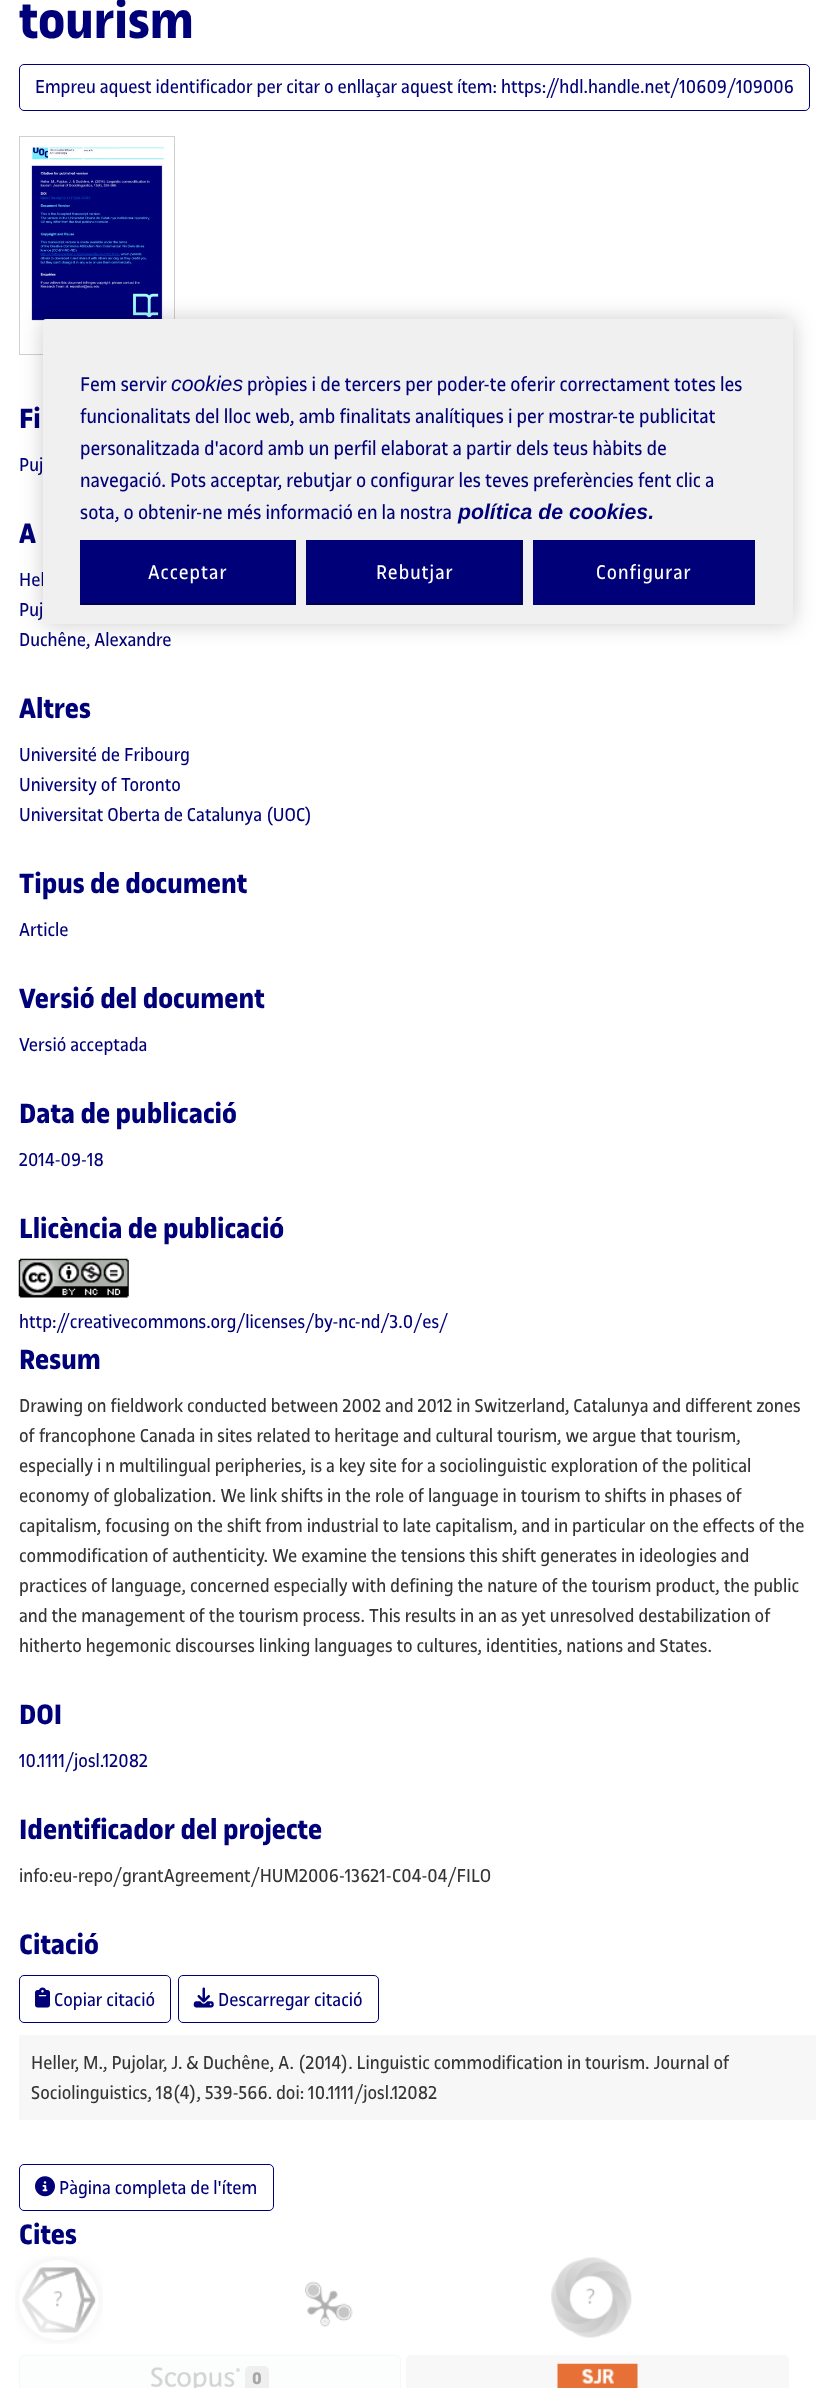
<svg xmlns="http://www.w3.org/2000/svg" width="835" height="2388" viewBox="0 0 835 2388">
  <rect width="100%" height="100%" fill="rgb(255,255,255)"/>
  <text x="19" y="38" font-family="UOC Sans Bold" font-size="55" font-weight="bold" fill="rgb(0,0,120)">tourism</text>
  <rect x="19.5" y="64.5" width="790" height="46" rx="4.5" fill="none" stroke="rgb(0,0,120)"/>
  <text x="35" y="93" font-family="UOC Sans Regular" font-size="20" fill="rgb(0,0,120)">Empreu aquest identificador per citar o enllaçar aquest ítem: https://hdl.handle.net/10609/109006</text>
  <rect x="19.5" y="136.5" width="155" height="218" fill="none" stroke="rgb(208,208,208)"/>
  <image x="28" y="146" width="137" height="196" href="pic1.png"/>
  <text x="19" y="428" font-family="UOC Sans Bold" font-size="30" font-weight="bold" fill="rgb(0,0,120)">Fi</text>
  <text x="19" y="471" font-family="UOC Sans Regular" font-size="20" fill="rgb(0,0,120)">Puj</text>
  <text x="19" y="543" font-family="UOC Sans Bold" font-size="30" font-weight="bold" fill="rgb(0,0,120)">A</text>
  <g font-family="UOC Sans Regular" font-size="20" fill="rgb(0,0,120)">
    <text>
      <tspan x="19" y="586">Hel</tspan>
      <tspan x="19" y="616">Puj</tspan>
      <tspan x="19" y="646">Duchêne, Alexandre</tspan>
    </text>
  </g>
  <text x="19" y="718" font-family="UOC Sans Bold" font-size="30" font-weight="bold" fill="rgb(0,0,120)">Altres</text>
  <g font-family="UOC Sans Regular" font-size="20" fill="rgb(0,0,120)">
    <text>
      <tspan x="19" y="761">Université de Fribourg</tspan>
      <tspan x="19" y="791">University of Toronto</tspan>
      <tspan x="19" y="821">Universitat Oberta de Catalunya (UOC)</tspan>
    </text>
  </g>
  <text x="19" y="893" font-family="UOC Sans Bold" font-size="30" font-weight="bold" fill="rgb(0,0,120)">Tipus de document</text>
  <text x="19" y="936" font-family="UOC Sans Regular" font-size="20" fill="rgb(0,0,120)">Article</text>
  <text x="19" y="1008" font-family="UOC Sans Bold" font-size="30" font-weight="bold" fill="rgb(0,0,120)">Versió del document</text>
  <text x="19" y="1051" font-family="UOC Sans Regular" font-size="20" fill="rgb(0,0,120)">Versió acceptada</text>
  <text x="19" y="1123" font-family="UOC Sans Bold" font-size="30" font-weight="bold" fill="rgb(0,0,120)">Data de publicació</text>
  <text x="19" y="1166" font-family="UOC Sans Regular" font-size="20" fill="rgb(0,0,120)">2014-09-18</text>
  <text x="19" y="1238" font-family="UOC Sans Bold" font-size="30" font-weight="bold" fill="rgb(0,0,120)">Llicència de publicació</text>
  <image x="18" y="1258" width="111" height="40" href="pic2.png"/>
  <text x="19" y="1328" font-family="UOC Sans Regular" font-size="20" fill="rgb(0,0,120)">http://creativecommons.org/licenses/by-nc-nd/3.0/es/</text>
  <text x="19" y="1369" font-family="UOC Sans Bold" font-size="30" font-weight="bold" fill="rgb(0,0,120)">Resum</text>
  <g font-family="UOC Sans Regular" font-size="20" fill="rgb(53,53,53)">
    <text>
      <tspan x="19" y="1412">Drawing on fieldwork conducted between 2002 and 2012 in Switzerland, Catalunya and different zones</tspan>
      <tspan x="19" y="1442">of francophone Canada in sites related to heritage and cultural tourism, we argue that tourism,</tspan>
      <tspan x="19" y="1472">especially i n multilingual peripheries, is a key site for a sociolinguistic exploration of the political</tspan>
      <tspan x="19" y="1502">economy of globalization. We link shifts in the role of language in tourism to shifts in phases of</tspan>
      <tspan x="19" y="1532">capitalism, focusing on the shift from industrial to late capitalism, and in particular on the effects of the</tspan>
      <tspan x="19" y="1562">commodification of authenticity. We examine the tensions this shift generates in ideologies and</tspan>
      <tspan x="19" y="1592">practices of language, concerned especially with defining the nature of the tourism product, the public</tspan>
      <tspan x="19" y="1622">and the management of the tourism process. This results in an as yet unresolved destabilization of</tspan>
      <tspan x="19" y="1652">hitherto hegemonic discourses linking languages to cultures, identities, nations and States.</tspan>
    </text>
  </g>
  <text x="19" y="1724" font-family="UOC Sans Bold" font-size="30" font-weight="bold" fill="rgb(0,0,120)">DOI</text>
  <text x="19" y="1767" font-family="UOC Sans Regular" font-size="20" fill="rgb(0,0,120)">10.1111/josl.12082</text>
  <text x="19" y="1839" font-family="UOC Sans Bold" font-size="30" font-weight="bold" fill="rgb(0,0,120)">Identificador del projecte</text>
  <text x="19" y="1882" font-family="UOC Sans Regular" font-size="20" fill="rgb(53,53,53)">info:eu-repo/grantAgreement/HUM2006-13621-C04-04/FILO</text>
  <text x="19" y="1954" font-family="UOC Sans Bold" font-size="30" font-weight="bold" fill="rgb(0,0,120)">Citació</text>
  <rect x="19.5" y="1975.5" width="151" height="47" rx="4.5" fill="none" stroke="rgb(0,0,120)"/>
  <image x="35" y="1987" width="15" height="21" href="pic3.png"/>
  <text x="54" y="2006" font-family="UOC Sans Regular" font-size="20" fill="rgb(0,0,120)">Copiar citació</text>
  <rect x="178.5" y="1975.5" width="200" height="47" rx="4.5" fill="none" stroke="rgb(0,0,120)"/>
  <image x="193" y="1987" width="21" height="21" href="pic4.png"/>
  <text x="218" y="2006" font-family="UOC Sans Regular" font-size="20" fill="rgb(0,0,120)">Descarregar citació</text>
  <rect x="19" y="2035" width="797" height="85" fill="rgb(247,247,247)"/>
  <g font-family="UOC Sans Regular" font-size="20" fill="rgb(53,53,53)">
    <text>
      <tspan x="31" y="2069">Heller, M., Pujolar, J. &amp; Duchêne, A. (2014). Linguistic commodification in tourism. Journal of</tspan>
      <tspan x="31" y="2099">Sociolinguistics, 18(4), 539-566. doi: 10.1111/josl.12082</tspan>
    </text>
  </g>
  <rect x="19.5" y="2164.5" width="254" height="46" rx="4.5" fill="none" stroke="rgb(0,0,120)"/>
  <image x="35" y="2176" width="20" height="21" href="pic5.png"/>
  <text x="59" y="2194" font-family="UOC Sans Regular" font-size="20" fill="rgb(0,0,120)">Pàgina completa de l'ítem</text>
  <text x="19" y="2244" font-family="UOC Sans Bold" font-size="30" font-weight="bold" fill="rgb(0,0,120)">Cites</text>
  <image x="15" y="2256" width="88" height="88" href="pic6.png"/>
  <image x="305" y="2281" width="48" height="46" href="pic7.png"/>
  <image x="551" y="2257" width="81" height="81" href="pic8.png"/>
  <rect x="19.5" y="2355.5" width="381" height="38" rx="4.5" fill="rgb(252,253,253)" stroke="rgb(246,247,249)"/>
  <image x="151" y="2367" width="89" height="21" href="pic9.png"/>
  <rect x="245" y="2366" width="24" height="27" rx="5" fill="rgb(239,239,239)"/>
  <text x="252" y="2384" font-family="UOC Sans Bold" font-size="18" font-weight="bold" fill="rgb(167,167,167)">0</text>
  <rect x="406" y="2355" width="383" height="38" rx="5" fill="rgb(248,248,248)"/>
  <image x="557" y="2363" width="81" height="25" href="pic10.png"/>
  <rect x="43" y="319" width="750" height="305" rx="3" fill="rgba(0,0,0,0.2)" filter="blur(11px)"/>
  <rect x="43" y="319" width="750" height="305" rx="3" fill="rgb(240,240,240)"/>
  <text x="80" y="391" font-family="UOC Sans Regular" font-size="21.25" fill="rgb(0,0,120)">Fem servir</text>
  <text x="171" y="391" font-family="Liberation Sans" font-size="21.25" font-style="italic" fill="rgb(0,0,120)">cookies</text>
  <g font-family="UOC Sans Regular" font-size="21.25" fill="rgb(0,0,120)">
    <text x="247" y="391">pròpies i de tercers per poder-te oferir correctament totes les</text>
    <text>
      <tspan x="80" y="423">funcionalitats del lloc web, amb finalitats analítiques i per mostrar-te publicitat</tspan>
      <tspan x="80" y="455">personalitzada d'acord amb un perfil elaborat a partir dels teus hàbits de</tspan>
      <tspan x="80" y="487">navegació. Pots acceptar, rebutjar o configurar les teves preferències fent clic a</tspan>
      <tspan x="80" y="519">sota, o obtenir-ne més informació en la nostra</tspan>
    </text>
  </g>
  <text x="458" y="519" font-family="Liberation Sans" font-size="21.25" font-weight="bold" font-style="italic" fill="rgb(0,0,120)">política de cookies.</text>
  <rect x="80" y="540" width="216" height="65" fill="rgb(0,0,120)"/>
  <path d="M296 540V605L294 603V543Z" fill="rgb(0,0,80)"/>
  <path d="M296 605H80L82 603H294Z" fill="rgb(0,0,80)"/>
  <path d="M80 605V540L82 543V603Z" fill="rgb(0,0,120)"/>
  <text x="148" y="579" font-family="UOC Sans Regular" font-size="21.25" letter-spacing="1" fill="rgb(255,255,255)">Acceptar</text>
  <rect x="306" y="540" width="217" height="65" fill="rgb(0,0,120)"/>
  <path d="M522 540V605L520 603V543Z" fill="rgb(0,0,80)"/>
  <path d="M522 605H306L309 603H520Z" fill="rgb(0,0,80)"/>
  <path d="M306 605V540L309 543V603Z" fill="rgb(0,0,120)"/>
  <text x="376" y="579" font-family="UOC Sans Regular" font-size="21.25" letter-spacing="1" fill="rgb(255,255,255)">Rebutjar</text>
  <rect x="533" y="540" width="222" height="65" fill="rgb(0,0,120)"/>
  <text x="596" y="579" font-family="UOC Sans Regular" font-size="21.25" letter-spacing="1" fill="rgb(255,255,255)">Configurar</text>
</svg>
